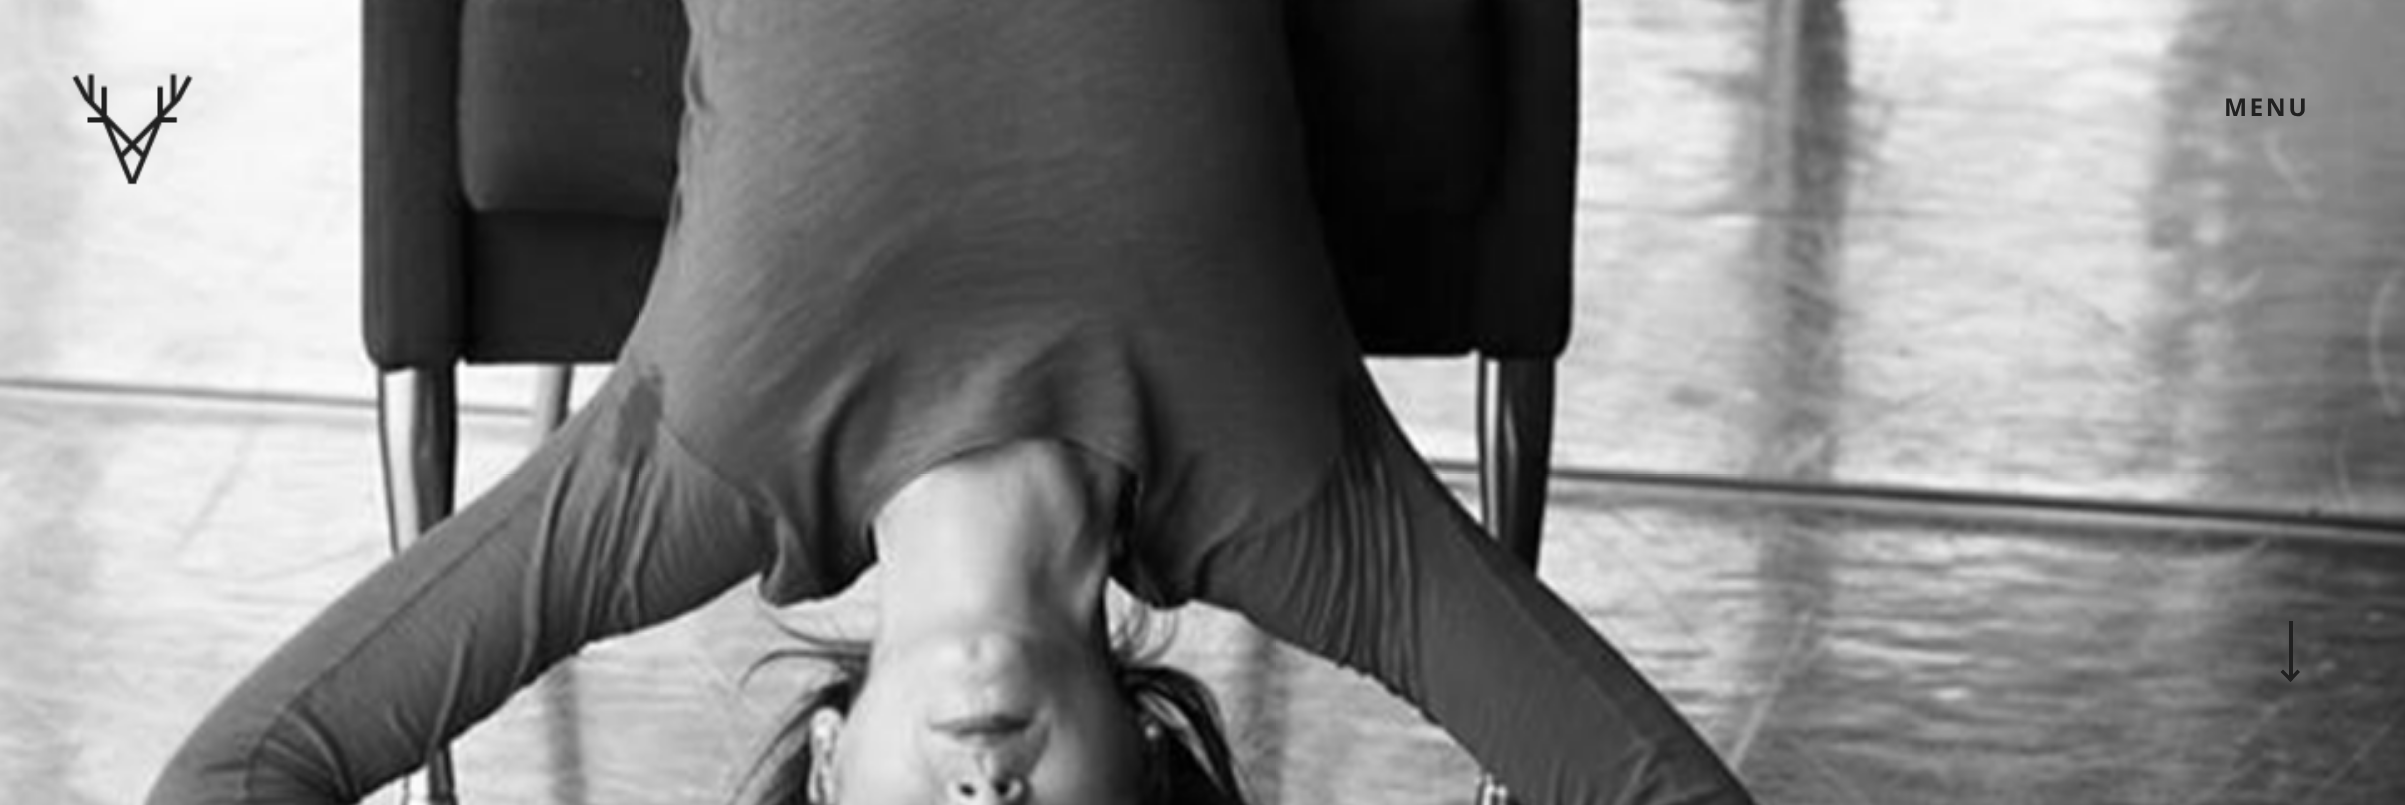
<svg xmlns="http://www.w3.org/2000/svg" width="2405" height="805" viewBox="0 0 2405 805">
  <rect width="100%" height="100%" fill="rgb(255,255,255)"/>
  <image x="0" y="0" width="2405" height="805" href="pic1.png"/>
  <path d="M2297.5 669.5L2300 672L2290.5 682L2288 679.5Z" fill="rgb(32,32,32)"/>
  <path d="M2283 669.5L2293 679.5L2290.5 682L2280.5 672Z" fill="rgb(32,32,32)"/>
  <rect x="2289" y="621" width="4" height="56" fill="rgb(32,32,32)"/>
  <image x="71" y="73" width="122" height="112" href="pic2.png"/>
  <text x="2224" y="116" font-family="Open Sans" font-size="24.5" font-weight="bold" letter-spacing="2.5" fill="rgb(32,32,32)">MENU</text>
</svg>
